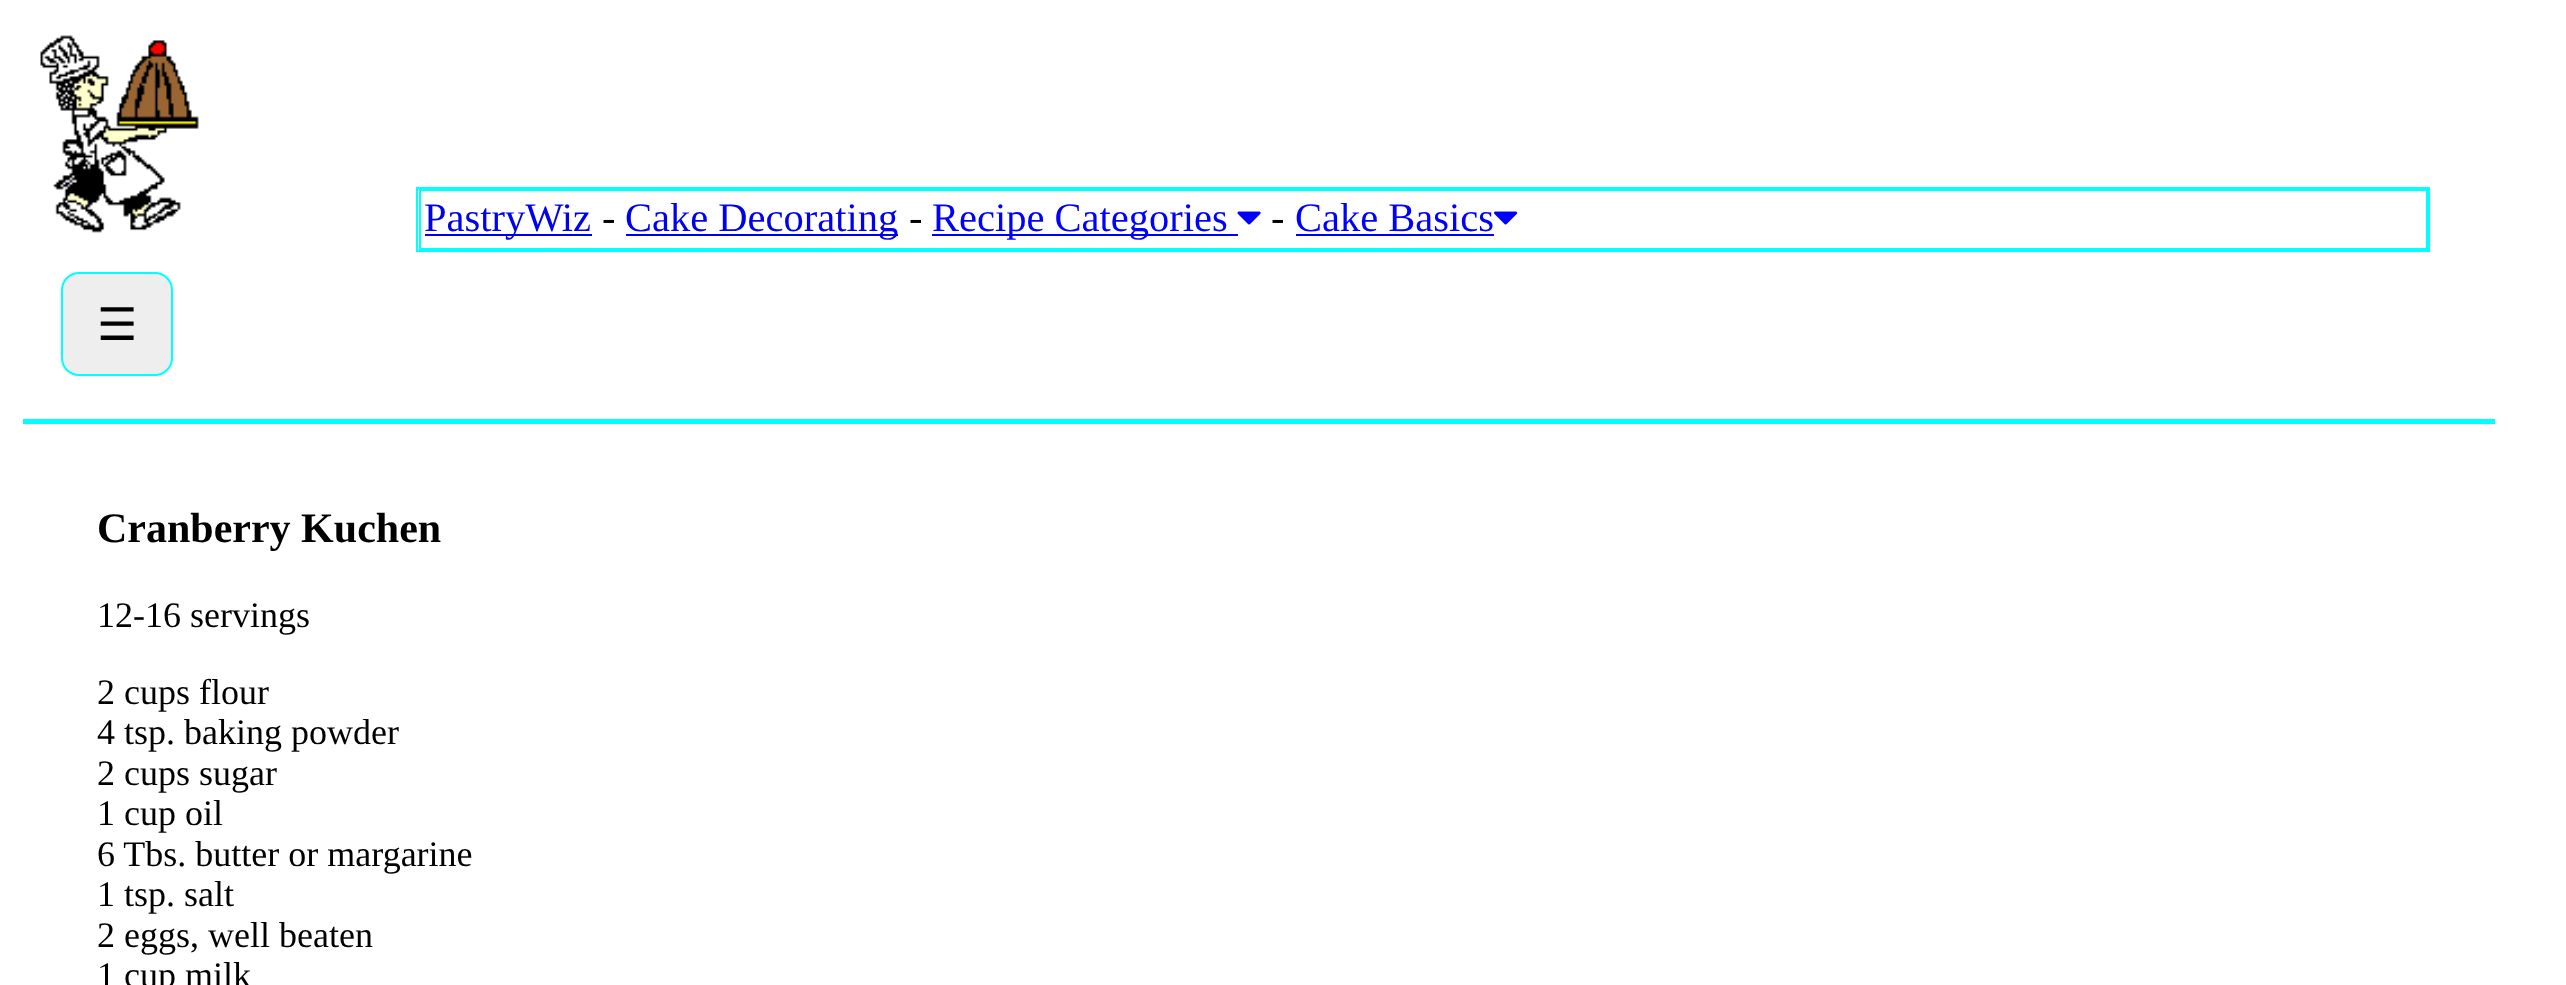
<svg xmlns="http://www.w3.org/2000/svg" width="2566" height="985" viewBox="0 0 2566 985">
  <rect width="100%" height="100%" fill="rgb(255,255,255)"/>
  <rect x="417" y="188" width="2012" height="63" fill="none" stroke="rgb(0,255,255)" stroke-width="2"/>
  <rect x="420" y="190" width="2007" height="59" fill="none" stroke="rgb(0,255,255)" stroke-width="2"/>
  <rect x="425" y="234" width="167" height="2" fill="rgb(0,0,238)"/>
  <text x="424" y="231" font-family="Liberation Serif" font-size="40.5" fill="rgb(0,0,238)">PastryWiz</text>
  <text x="602" y="231" font-family="Liberation Serif" font-size="40.5" fill="rgb(0,0,0)">-</text>
  <rect x="626" y="234" width="272" height="2" fill="rgb(0,0,238)"/>
  <text x="625" y="231" font-family="Liberation Serif" font-size="40.5" fill="rgb(0,0,238)">Cake Decorating</text>
  <text x="909" y="231" font-family="Liberation Serif" font-size="40.5" fill="rgb(0,0,0)">-</text>
  <rect x="932" y="234" width="306" height="2" fill="rgb(0,0,255)"/>
  <text x="932" y="231" font-family="Liberation Serif" font-size="40.5" fill="rgb(0,0,255)">Recipe Categories</text>
  <image x="1237" y="211" width="24" height="14" href="pic1.png"/>
  <text x="1271" y="231" font-family="Liberation Serif" font-size="40.5" fill="rgb(0,0,0)">-</text>
  <text x="1295" y="231" font-family="Liberation Serif" font-size="40.5" fill="rgb(0,0,255)">Cake Basics</text>
  <rect x="1296" y="234" width="198" height="2" fill="rgb(0,0,255)"/>
  <image x="1494" y="211" width="24" height="14" href="pic2.png"/>
  <image x="40" y="35" width="159" height="198" href="pic3.png"/>
  <rect x="62" y="273" width="110" height="102" rx="17" fill="rgb(238,238,238)" stroke="rgb(0,255,255)" stroke-width="2"/>
  <text x="97" y="340" font-family="DejaVu Sans" font-size="45" fill="rgb(0,0,0)">☰</text>
  <rect x="23" y="419" width="2472" height="5" fill="rgb(0,255,255)"/>
  <text x="97" y="542" font-family="Liberation Serif" font-size="42" font-weight="bold" fill="rgb(0,0,0)">Cranberry Kuchen</text>
  <g font-family="Liberation Serif" font-size="36" fill="rgb(0,0,0)">
    <text x="97" y="627">12-16 servings</text>
    <text>
      <tspan x="97" y="704">2 cups flour</tspan>
      <tspan x="97" y="744">4 tsp. baking powder</tspan>
      <tspan x="97" y="785">2 cups sugar</tspan>
      <tspan x="97" y="825">1 cup oil</tspan>
      <tspan x="97" y="866">6 Tbs. butter or margarine</tspan>
      <tspan x="97" y="906">1 tsp. salt</tspan>
      <tspan x="97" y="947">2 eggs, well beaten</tspan>
      <tspan x="97" y="987">1 cup milk</tspan>
    </text>
  </g>
</svg>
